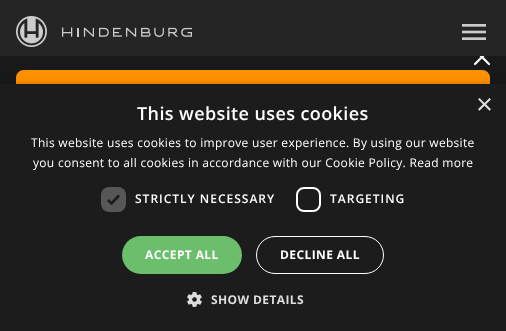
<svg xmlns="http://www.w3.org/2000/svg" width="506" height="331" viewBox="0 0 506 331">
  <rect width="100%" height="100%" fill="rgb(25,25,25)"/>
  <path d="M475 50L489 64M489 50L475 64" fill="none" stroke="rgb(255,255,255)" stroke-width="2.2" stroke-linecap="round" stroke-linejoin="round"/>
  <rect x="0" y="0" width="506" height="56" fill="rgb(37,37,37)"/>
  <image x="16" y="16" width="176" height="31" href="pic1.png"/>
  <image x="462" y="24" width="24" height="16" href="pic2.png"/>
  <path d="M24 70H482C486.5 70 490 73.5 490 78V245H16V78C16 73.5 19.5 70 24 70Z" fill="rgb(255,144,2)"/>
  <rect x="1" y="86" width="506" height="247" fill="rgba(0,0,0,0.35)" filter="blur(4px)"/>
  <rect x="0" y="84" width="506" height="247" fill="rgb(28,28,28)"/>
  <text x="476" y="114" font-family="Liberation Sans" font-size="29" fill="rgb(221,221,221)">×</text>
  <text x="137" y="120" font-family="Open Sans" font-size="18" font-weight="600" letter-spacing="0.4" fill="rgb(255,255,255)">This website uses cookies</text>
  <g font-family="Open Sans" font-size="12" letter-spacing="0.3" fill="rgb(255,255,255)">
    <text x="31" y="147">This website uses cookies to improve user experience. By using our website</text>
    <text x="33" y="167">you consent to all cookies in accordance with our Cookie Policy. Read more</text>
  </g>
  <rect x="101" y="187" width="25" height="25" rx="8" fill="rgb(87,87,87)"/>
  <path d="M108 200L111.5 203.5L119 195.5" fill="none" stroke="rgb(28,28,28)" stroke-width="2.6"/>
  <text x="135" y="203" font-family="Open Sans" font-size="12" font-weight="600" letter-spacing="1" fill="rgb(255,255,255)">STRICTLY NECESSARY</text>
  <rect x="297" y="188" width="23" height="23" rx="7" fill="none" stroke="rgb(255,255,255)" stroke-width="2"/>
  <text x="330" y="203" font-family="Open Sans" font-size="12" font-weight="600" letter-spacing="1" fill="rgb(255,255,255)">TARGETING</text>
  <rect x="122" y="236" width="120" height="38" rx="19" fill="rgb(107,190,107)"/>
  <text x="145" y="259" font-family="Open Sans" font-size="12" font-weight="bold" letter-spacing="0.4" fill="rgb(255,255,255)">ACCEPT ALL</text>
  <rect x="256.5" y="236.5" width="127" height="37" rx="18.5" fill="none" stroke="rgb(255,255,255)"/>
  <text x="280" y="259" font-family="Open Sans" font-size="12" font-weight="bold" letter-spacing="0.4" fill="rgb(255,255,255)">DECLINE ALL</text>
  <image x="187" y="292" width="15" height="15" href="pic3.png"/>
  <text x="211" y="304" font-family="Open Sans" font-size="12" font-weight="bold" letter-spacing="0.4" fill="rgb(221,221,221)">SHOW DETAILS</text>
</svg>
